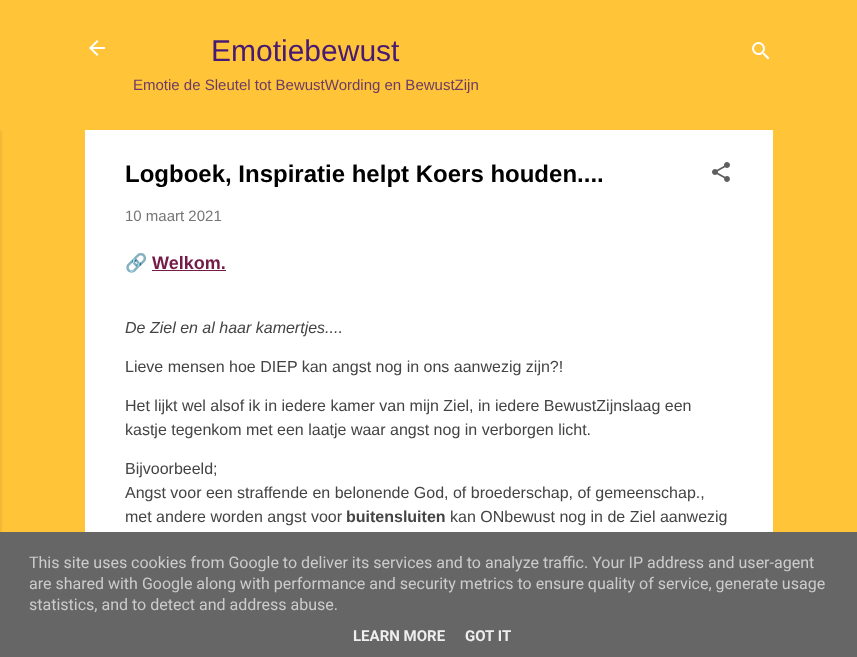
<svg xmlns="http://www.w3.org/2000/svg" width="857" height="657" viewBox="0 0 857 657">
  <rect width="100%" height="100%" fill="rgb(255,196,55)"/>
  <rect x="-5" y="131" width="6" height="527" fill="rgba(0,0,0,0.1)" filter="blur(1.5px)"/>
  <image x="89" y="40" width="16" height="16" href="pic1.png"/>
  <text x="211" y="61" font-family="Liberation Sans" font-size="30" fill="rgb(71,26,116)">Emotiebewust</text>
  <text x="133" y="90" font-family="Liberation Sans" font-size="15" fill="rgb(108,60,104)">Emotie de Sleutel tot BewustWording en BewustZijn</text>
  <image x="752" y="42" width="18" height="18" href="pic2.png"/>
  <rect x="85" y="130" width="688" height="402" fill="rgb(255,255,255)"/>
  <text x="125" y="182" font-family="Liberation Sans" font-size="24" font-weight="bold" fill="rgb(0,0,0)">Logboek, Inspiratie helpt Koers houden....</text>
  <image x="712" y="162" width="18" height="20" href="pic3.png"/>
  <text x="125" y="221" font-family="Liberation Sans" font-size="15" fill="rgb(117,117,117)">10 maart 2021</text>
  <text x="125" y="269" font-family="Noto Color Emoji" font-size="18" font-weight="bold" fill="rgb(68,68,68)">🔗</text>
  <text x="152" y="269" font-family="Liberation Sans" font-size="18" font-weight="bold" fill="rgb(116,27,71)">Welkom.</text>
  <rect x="152" y="270" width="74" height="1" fill="rgb(116,27,71)"/>
  <text x="125" y="333" font-family="Liberation Sans" font-size="16" font-style="italic" fill="rgb(68,68,68)">De Ziel en al haar kamertjes....</text>
  <g font-family="Liberation Sans" font-size="16" fill="rgb(68,68,68)">
    <text x="125" y="372">Lieve mensen hoe DIEP kan angst nog in ons aanwezig zijn?!</text>
    <text>
      <tspan x="125" y="411">Het lijkt wel alsof ik in iedere kamer van mijn Ziel, in iedere BewustZijnslaag een</tspan>
      <tspan x="125" y="435">kastje tegenkom met een laatje waar angst nog in verborgen licht.</tspan>
    </text>
    <text>
      <tspan x="125" y="474">Bijvoorbeeld;</tspan>
      <tspan x="125" y="498">Angst voor een straffende en belonende God, of broederschap, of gemeenschap.,</tspan>
      <tspan x="125" y="522">met andere worden angst voor</tspan>
    </text>
  </g>
  <text x="346" y="522" font-family="Liberation Sans" font-size="16" font-weight="bold" fill="rgb(68,68,68)">buitensluiten</text>
  <text x="450" y="522" font-family="Liberation Sans" font-size="16" fill="rgb(68,68,68)">kan ONbewust nog in de Ziel aanwezig</text>
  <rect x="0" y="532" width="857" height="125" fill="rgb(102,102,102)"/>
  <g font-family="Roboto" font-size="16" fill="rgb(204,204,204)">
    <text>
      <tspan x="29" y="568">This site uses cookies from Google to deliver its services and to analyze traffic. Your IP address and user-agent</tspan>
      <tspan x="29" y="589">are shared with Google along with performance and security metrics to ensure quality of service, generate usage</tspan>
      <tspan x="29" y="610">statistics, and to detect and address abuse.</tspan>
    </text>
  </g>
  <g font-family="Roboto" font-size="15" font-weight="bold" fill="rgb(238,238,238)">
    <text x="353" y="641">LEARN MORE</text>
    <text x="465" y="641">GOT IT</text>
  </g>
</svg>
